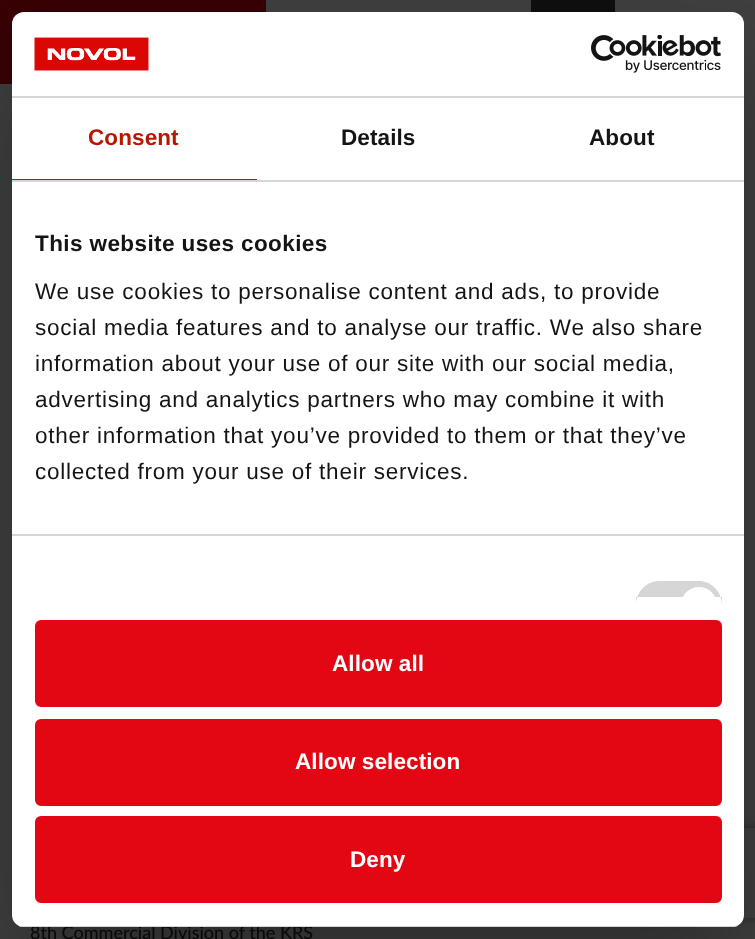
<svg xmlns="http://www.w3.org/2000/svg" width="755" height="939" viewBox="0 0 755 939">
  <defs>
    <clipPath id="clip1"><path d="M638 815H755V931H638ZM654 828H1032C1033.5 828 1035 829.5 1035 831V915C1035 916.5 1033.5 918 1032 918H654C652.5 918 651 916.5 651 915V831C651 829.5 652.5 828 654 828Z" clip-rule="evenodd"/></clipPath>
    <clipPath id="clip2"><rect x="12" y="12" width="732" height="915" rx="12"/></clipPath>
  </defs>
  <rect width="100%" height="100%" fill="rgb(64,64,64)"/>
  <image x="0" y="0" width="266" height="84" href="pic1.png"/>
  <rect x="531" y="0" width="84" height="12" fill="rgb(16,15,15)"/>
  <rect x="12" y="60" width="732" height="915" rx="12" fill="rgba(0,0,0,0.3)" filter="blur(51px)"/>
  <text x="30" y="939" font-family="Lato" font-size="18" font-weight="500" fill="rgb(10,9,9)">8th Commercial Division of the KRS</text>
  <g clip-path="url(#clip1)">
    <rect x="651" y="828" width="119" height="90" rx="3" fill="rgb(32,32,32)" filter="blur(4px)"/>
  </g>
  <rect x="12" y="12" width="732" height="915" rx="12" fill="rgb(255,255,255)"/>
  <rect x="12" y="96" width="732" height="2" fill="rgb(214,214,214)"/>
  <image x="34" y="37" width="115" height="34" href="pic2.png"/>
  <image x="591" y="35" width="130" height="38" href="pic3.png"/>
  <rect x="12" y="180" width="732" height="2" fill="rgb(214,214,214)"/>
  <rect x="12" y="179" width="245" height="1" fill="rgb(181,26,0)"/>
  <text x="88" y="145" font-family="Liberation Sans" font-size="22.5" font-weight="bold" letter-spacing="0.1" fill="rgb(181,26,0)">Consent</text>
  <g font-family="Liberation Sans" font-size="22.5" font-weight="bold" letter-spacing="0.1" fill="rgb(20,20,20)">
    <text x="341" y="145">Details</text>
    <text x="589" y="145">About</text>
  </g>
  <rect x="12" y="534" width="732" height="2" fill="rgb(214,214,214)"/>
  <text x="35" y="251" font-family="Liberation Sans" font-size="22.5" font-weight="bold" letter-spacing="0.4" fill="rgb(20,20,20)">This website uses cookies</text>
  <g font-family="Liberation Sans" font-size="22.5" letter-spacing="0.75" fill="rgb(20,20,20)">
    <text>
      <tspan x="35" y="299">We use cookies to personalise content and ads, to provide</tspan>
      <tspan x="35" y="335">social media features and to analyse our traffic. We also share</tspan>
      <tspan x="35" y="371">information about your use of our site with our social media,</tspan>
      <tspan x="35" y="407">advertising and analytics partners who may combine it with</tspan>
      <tspan x="35" y="443">other information that you’ve provided to them or that they’ve</tspan>
      <tspan x="35" y="479">collected from your use of their services.</tspan>
    </text>
  </g>
  <path d="M660 581H698C711.5 581 722 591.5 722 605V597H636V605C636 591.5 646.5 581 660 581Z" fill="rgb(214,214,214)"/>
  <path d="M699 587C709 587 717 595 717 605V597H681V605C681 595 689 587 699 587Z" fill="rgb(255,255,255)"/>
  <g clip-path="url(#clip2)">
    <rect x="12" y="926" width="732" height="1" fill="rgb(214,214,214)"/>
  </g>
  <rect x="36.5" y="621.5" width="684" height="84" rx="4.5" fill="rgb(227,6,19)" stroke="rgb(227,6,19)" stroke-width="3"/>
  <text x="332" y="671" font-family="Liberation Sans" font-size="22.5" font-weight="bold" letter-spacing="0.1" fill="rgb(255,255,255)">Allow all</text>
  <rect x="36.5" y="720.5" width="684" height="84" rx="4.5" fill="rgb(227,6,19)" stroke="rgb(227,6,19)" stroke-width="3"/>
  <text x="295" y="769" font-family="Liberation Sans" font-size="22.5" font-weight="bold" letter-spacing="0.1" fill="rgb(255,255,255)">Allow selection</text>
  <rect x="36.5" y="817.5" width="684" height="84" rx="4.5" fill="rgb(227,6,19)" stroke="rgb(227,6,19)" stroke-width="3"/>
  <text x="350" y="867" font-family="Liberation Sans" font-size="22.5" font-weight="bold" letter-spacing="0.1" fill="rgb(255,255,255)">Deny</text>
</svg>
